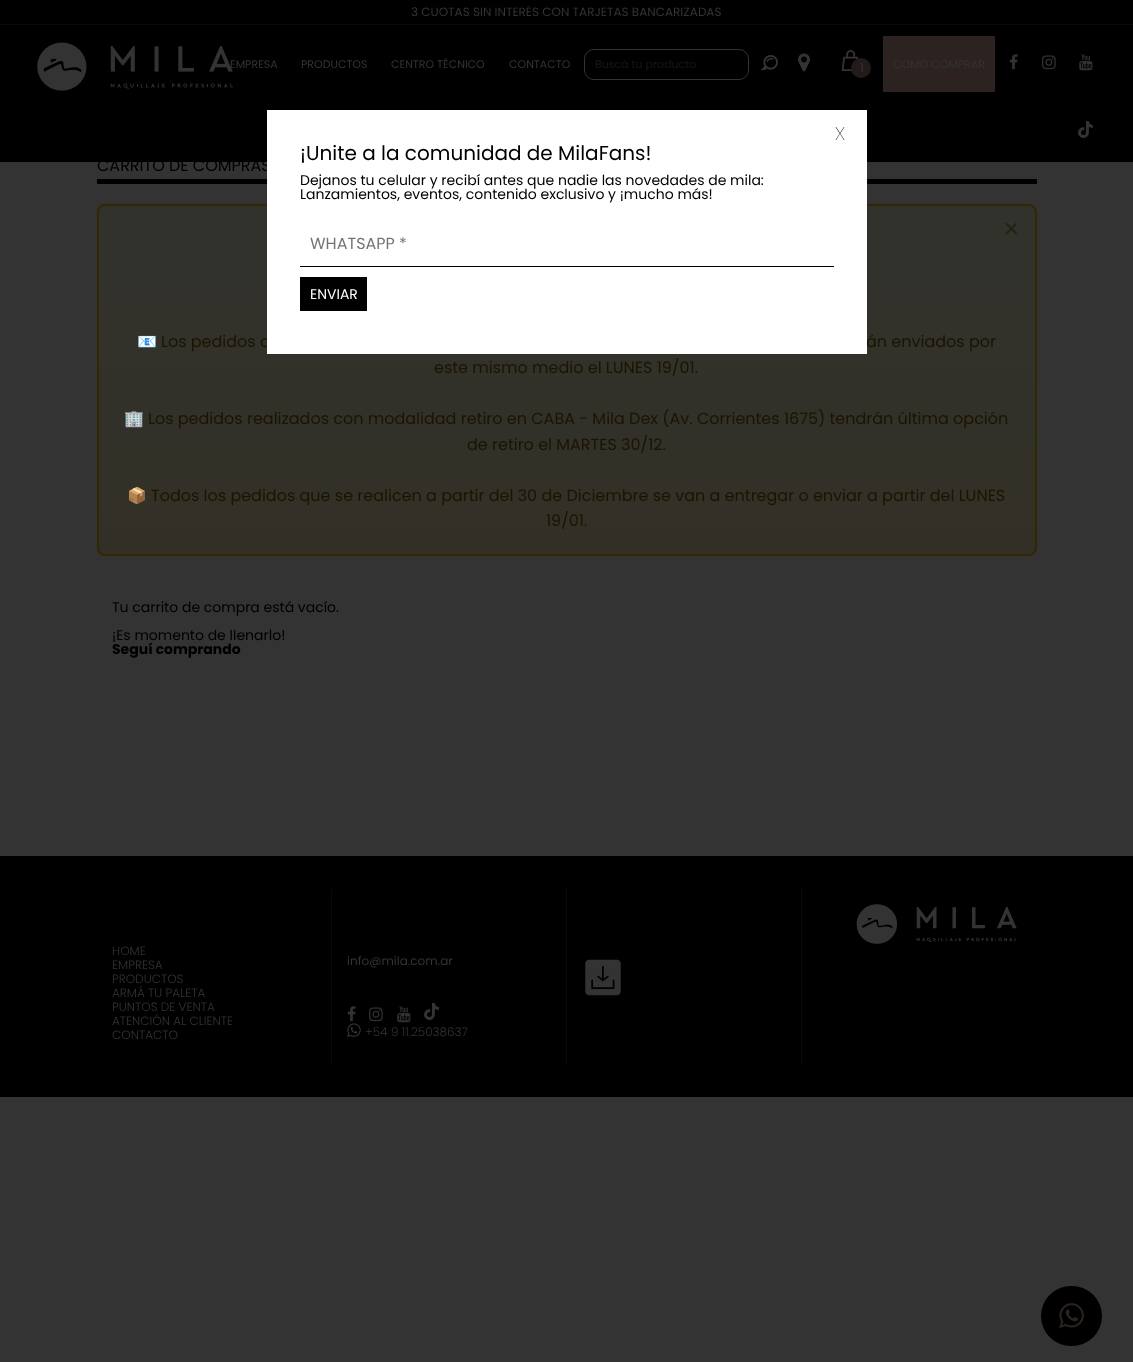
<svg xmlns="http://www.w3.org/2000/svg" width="1133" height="1362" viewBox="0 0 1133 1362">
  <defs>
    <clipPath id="clip1"><rect x="6" y="6" width="1121" height="12"/></clipPath>
    <clipPath id="clip2"><rect x="97" y="204" width="940" height="352" rx="8"/></clipPath>
    <linearGradient id="g1" gradientUnits="userSpaceOnUse" x1="567" y1="206" x2="567" y2="554"><stop offset="0" stop-color="rgb(50,50,45)"/><stop offset="1" stop-color="rgb(50,48,38)"/></linearGradient>
  </defs>
  <rect width="100%" height="100%" fill="rgb(51,51,51)"/>
  <rect x="0" y="0" width="1133" height="162" fill="rgb(0,0,0)"/>
  <rect x="0" y="24" width="1133" height="1" fill="rgb(10,10,10)"/>
  <g clip-path="url(#clip1)">
    <text x="411" y="16" font-family="Poppins" font-size="12" fill="rgb(51,51,51)">3 CUOTAS SIN INTERÉS CON TARJETAS BANCARIZADAS</text>
  </g>
  <image x="37" y="42" width="196" height="49" href="pic1.png"/>
  <g font-family="Poppins" font-size="11" fill="rgb(51,51,51)">
    <text x="230" y="68">EMPRESA</text>
    <text x="301" y="68">PRODUCTOS</text>
    <text x="391" y="68">CENTRO TÉCNICO</text>
    <text x="509" y="68">CONTACTO</text>
  </g>
  <rect x="584.5" y="49.5" width="164" height="30" rx="9.5" fill="none" stroke="rgb(51,51,51)"/>
  <text x="595" y="68" font-family="Poppins" font-size="11" fill="rgb(23,23,23)">Buscá tu producto</text>
  <image x="760" y="55" width="18" height="15" href="pic2.png"/>
  <image x="798" y="53" width="12" height="19" href="pic3.png"/>
  <image x="841" y="50" width="18" height="21" href="pic4.png"/>
  <circle cx="861" cy="68" r="10" fill="rgb(35,27,25)"/>
  <text x="860" y="72" font-family="Poppins" font-size="12" fill="rgb(51,51,51)">1</text>
  <rect x="883" y="36" width="112" height="56" fill="rgb(44,34,32)"/>
  <text x="893" y="68" font-family="Poppins" font-size="11" fill="rgb(51,51,51)">COMO COMPRAR</text>
  <image x="1009" y="54" width="9" height="16" href="pic5.png"/>
  <image x="1042" y="55" width="14" height="15" href="pic6.png"/>
  <image x="1079" y="54" width="14" height="17" href="pic7.png"/>
  <image x="1078" y="121" width="15" height="17" href="pic8.png"/>
  <rect x="97" y="179" width="940" height="5" fill="rgb(0,0,0)"/>
  <text x="97" y="171" font-family="Poppins" font-size="16" fill="rgb(0,0,0)">CARRITO DE COMPRAS</text>
  <g clip-path="url(#clip2)">
    <rect x="97" y="206" width="940" height="348" fill="url(#g1)"/>
  </g>
  <rect x="98" y="205" width="938" height="350" rx="7" fill="none" stroke="rgb(51,39,1)" stroke-width="2"/>
  <g font-family="Poppins" font-size="16" fill="rgb(27,20,1)">
    <text x="161" y="347">Los pedidos c</text>
    <text x="866" y="347">án enviados por</text>
  </g>
  <rect x="267" y="110" width="600" height="244" fill="rgb(255,255,255)"/>
  <text x="835" y="140" font-family="Poppins" font-size="24" font-weight="100" fill="rgb(0,0,0)">x</text>
  <text x="300" y="160" font-family="Poppins" font-size="20" fill="rgb(0,0,0)">¡Unite a la comunidad de MilaFans!</text>
  <g font-family="Poppins" font-size="14" fill="rgb(0,0,0)">
    <text>
      <tspan x="300" y="185">Dejanos tu celular y recibí antes que nadie las novedades de mila:</tspan>
      <tspan x="300" y="199">Lanzamientos, eventos, contenido exclusivo y ¡mucho más!</tspan>
    </text>
  </g>
  <rect x="300" y="266" width="534" height="1" fill="rgb(0,0,0)"/>
  <text x="310" y="249" font-family="Poppins" font-size="16" fill="rgb(117,117,117)">WHATSAPP *</text>
  <rect x="300" y="277" width="67" height="34" fill="rgb(0,0,0)"/>
  <text x="310" y="299" font-family="Poppins" font-size="14" fill="rgb(255,255,255)">ENVIAR</text>
  <text x="1003" y="239" font-family="Poppins" font-size="28" font-weight="300" fill="rgb(36,32,18)">×</text>
  <text x="137" y="347" font-family="Noto Color Emoji" font-size="16" fill="rgb(27,20,1)">📧</text>
  <text x="434" y="373" font-family="Poppins" font-size="16" fill="rgb(27,20,1)">este mismo medio el LUNES 19/01.</text>
  <text x="124" y="424" font-family="Noto Color Emoji" font-size="16" fill="rgb(27,20,1)">🏢</text>
  <g font-family="Poppins" font-size="16" fill="rgb(27,20,1)">
    <text x="148" y="424">Los pedidos realizados con modalidad retiro en CABA - Mila Dex (Av. Corrientes 1675) tendrán última opción</text>
    <text x="467" y="450">de retiro el MARTES 30/12.</text>
  </g>
  <text x="127" y="501" font-family="Noto Color Emoji" font-size="16" fill="rgb(27,20,1)">📦</text>
  <g font-family="Poppins" font-size="16" fill="rgb(27,20,1)">
    <text x="151" y="501">Todos los pedidos que se realicen a partir del 30 de Diciembre se van a entregar o enviar a partir del LUNES</text>
    <text x="546" y="526">19/01.</text>
  </g>
  <g font-family="Poppins" font-size="14" fill="rgb(0,0,0)">
    <text x="112" y="612">Tu carrito de compra está vacío.</text>
    <text x="112" y="640">¡Es momento de llenarlo!</text>
  </g>
  <text x="112" y="654" font-family="Poppins" font-size="14" font-weight="bold" fill="rgb(0,0,0)">Seguí comprando</text>
  <rect x="0" y="856" width="1133" height="241" fill="rgb(0,0,0)"/>
  <rect x="801" y="889" width="1" height="175" fill="rgb(10,10,10)"/>
  <image x="585" y="959" width="36" height="37" href="pic9.png"/>
  <image x="856" y="904" width="161" height="40" href="pic10.png"/>
  <rect x="331" y="889" width="1" height="175" fill="rgb(10,10,10)"/>
  <g font-family="Poppins" font-size="12" font-weight="300" fill="rgb(51,51,51)">
    <text>
      <tspan x="112" y="955">HOME</tspan>
      <tspan x="112" y="969">EMPRESA</tspan>
      <tspan x="112" y="983">PRODUCTOS</tspan>
      <tspan x="112" y="997">ARMÁ TU PALETA</tspan>
      <tspan x="112" y="1011">PUNTOS DE VENTA</tspan>
      <tspan x="112" y="1025">ATENCIÓN AL CLIENTE</tspan>
      <tspan x="112" y="1039">CONTACTO</tspan>
    </text>
  </g>
  <rect x="566" y="889" width="1" height="175" fill="rgb(10,10,10)"/>
  <text x="347" y="965" font-family="Poppins" font-size="12" fill="rgb(51,51,51)">info@mila.com.ar</text>
  <image x="347" y="1006" width="9" height="16" href="pic5.png"/>
  <image x="369" y="1007" width="14" height="15" href="pic6.png"/>
  <image x="397" y="1006" width="14" height="17" href="pic7.png"/>
  <image x="424" y="1003" width="15" height="17" href="pic8.png"/>
  <image x="347" y="1023" width="14" height="15" href="pic11.png"/>
  <text x="365" y="1036" font-family="Poppins" font-size="12" font-weight="300" fill="rgb(51,51,51)">+54 9 11.25038637</text>
  <rect x="1041" y="1286" width="61" height="60" rx="30" fill="rgb(0,0,0)"/>
  <image x="1059" y="1303" width="25" height="26" href="pic12.png"/>
</svg>
